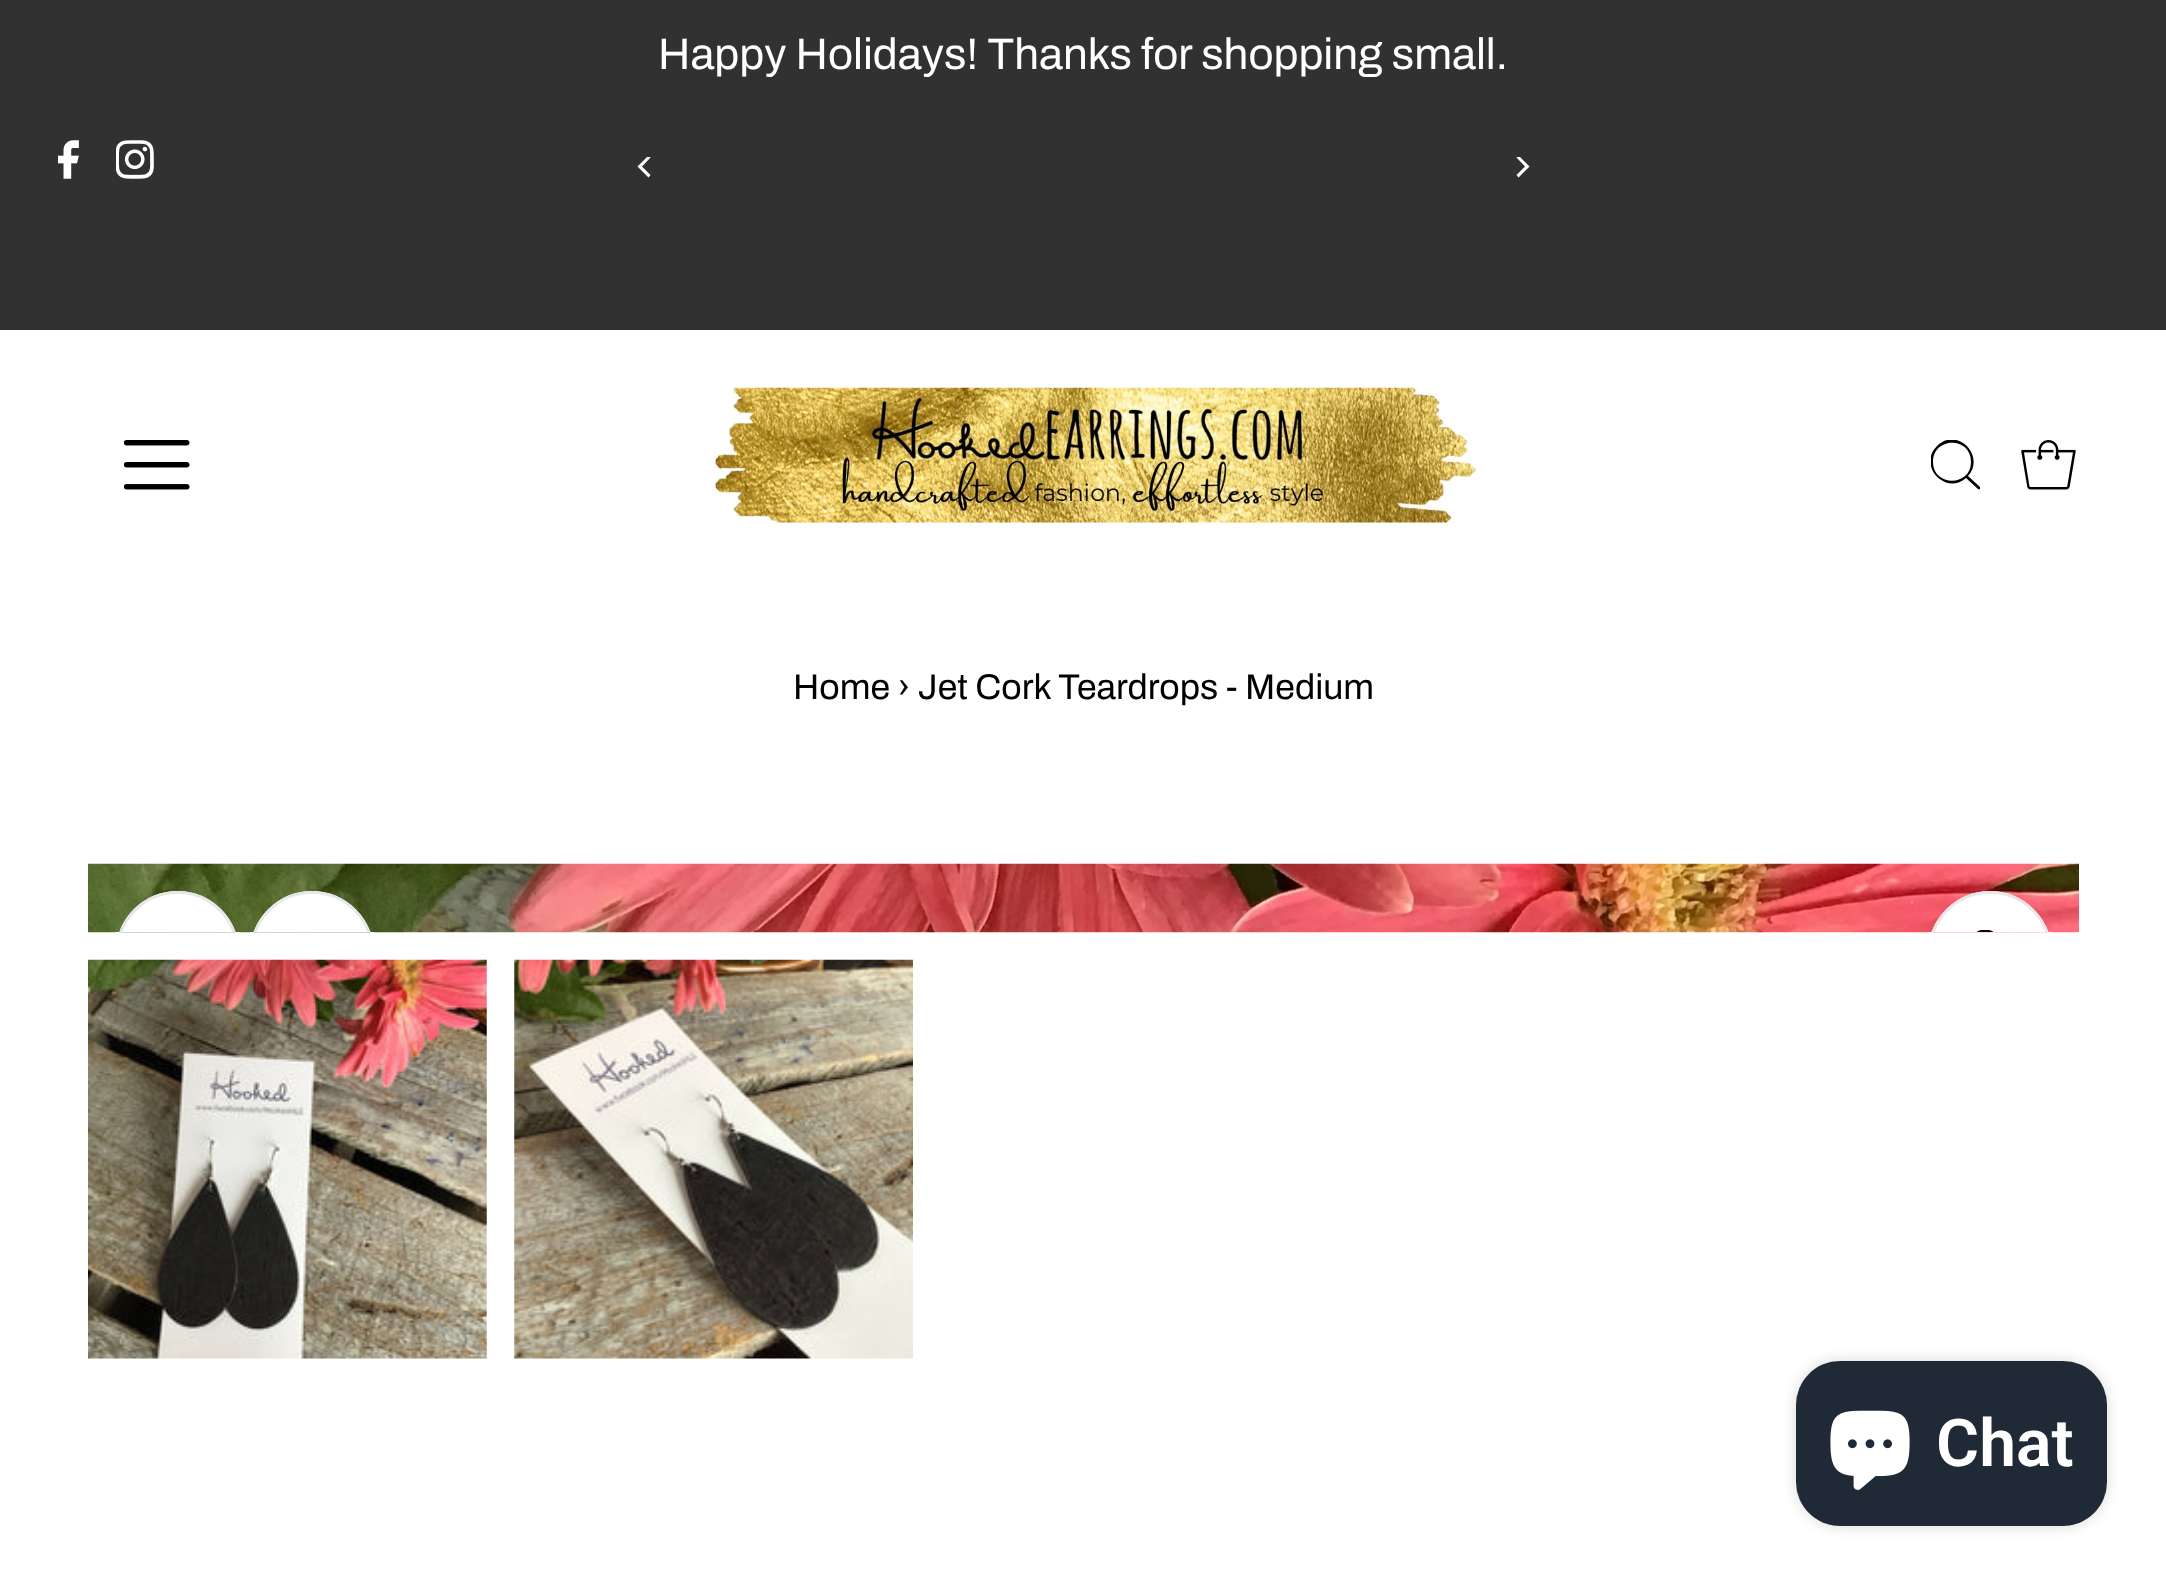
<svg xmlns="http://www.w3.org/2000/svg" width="2166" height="1583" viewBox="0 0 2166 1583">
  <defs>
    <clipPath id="clip1"><rect x="635" y="157" width="22" height="22"/></clipPath>
    <clipPath id="clip2"><rect x="1510" y="157" width="22" height="22"/></clipPath>
    <clipPath id="clip3"><rect x="1931" y="440" width="49" height="50"/></clipPath>
    <clipPath id="clip4"><rect x="88" y="864" width="1991" height="68"/></clipPath>
    <clipPath id="clip5"><rect x="1969" y="930" width="44" height="2"/></clipPath>
  </defs>
  <rect width="100%" height="100%" fill="rgb(255,255,255)"/>
  <rect x="0" y="0" width="2166" height="330" fill="rgb(49,49,49)"/>
  <text x="658" y="69" font-family="Archivo" font-size="44" fill="rgb(255,255,255)">Happy Holidays! Thanks for shopping small.</text>
  <g clip-path="url(#clip1)">
    <path d="M637.5 166.5L648.5 177.5L650.5 175L642 166.5L650.5 157.5L648.5 155.5Z" fill="rgb(255,255,255)"/>
  </g>
  <g clip-path="url(#clip2)">
    <path d="M1529.5 166.5L1518.5 155.5L1516.5 157.5L1525 166.5L1516.5 175L1518.5 177.5Z" fill="rgb(255,255,255)"/>
  </g>
  <image x="58" y="140" width="21" height="39" href="pic1.png"/>
  <image x="116" y="140" width="38" height="39" href="pic2.png"/>
  <image x="124" y="440" width="66" height="50" href="pic3.png"/>
  <image x="712" y="387" width="765" height="136" href="pic4.png"/>
  <g clip-path="url(#clip3)">
    <path d="M1980 487L1968 476C1986 456 1957 426 1937 446C1917 466 1946 496 1966 478L1978 489C1980 490 1981 488 1980 487ZM1933 462C1933 437 1971 436 1971 462C1971 487 1933 487 1933 462Z" fill="rgb(0,0,0)"/>
  </g>
  <image x="2021" y="440" width="55" height="50" href="pic5.png"/>
  <text x="793" y="699" font-family="Archivo" font-size="35.75" fill="rgb(0,0,0)">Home › Jet Cork Teardrops - Medium</text>
  <image x="88" y="863" width="1991" height="70" href="pic6.png"/>
  <path d="M1990 891C2024 891 2052 919 2052 953V932H1928V953C1928 919 1956 891 1990 891Z" fill="rgb(255,255,255)"/>
  <g clip-path="url(#clip4)">
    <circle cx="1990" cy="953" r="60.5" fill="none" stroke="rgb(231,231,231)" stroke-width="3"/>
  </g>
  <g clip-path="url(#clip5)">
    <path d="M2000 957H1998C2011 941 1989 920 1974 934C1959 949 1980 971 1996 958V959V961L2009 973L2013 970ZM1985 957C1971 957 1971 935 1985 935C2000 935 2000 957 1985 957Z" fill="rgb(0,0,0)"/>
  </g>
  <path d="M177.5 891C211.5 891 239 918.5 239 952.5V932H116V952.5C116 918.5 143.5 891 177.5 891Z" fill="rgb(255,255,255)"/>
  <g clip-path="url(#clip4)">
    <rect x="117.5" y="892.5" width="120" height="121" rx="60" fill="none" stroke="rgb(231,231,231)" stroke-width="3"/>
  </g>
  <path d="M312 891C346 891 374 919 374 953V932H250V953C250 919 278 891 312 891Z" fill="rgb(255,255,255)"/>
  <g clip-path="url(#clip4)">
    <circle cx="312" cy="953" r="60.5" fill="none" stroke="rgb(231,231,231)" stroke-width="3"/>
  </g>
  <image x="88" y="959" width="399" height="400" href="pic7.png"/>
  <image x="514" y="959" width="399" height="400" href="pic8.png"/>
  <rect x="1796" y="1361" width="311" height="165" rx="44" fill="rgba(0,0,0,0.15)" filter="blur(7px)"/>
  <rect x="1796" y="1361" width="311" height="165" rx="44" fill="rgb(32,42,54)"/>
  <image x="1830" y="1410" width="80" height="80" href="pic9.png"/>
  <text x="1936" y="1466" font-family="Roboto" font-size="66" font-weight="600" fill="rgb(255,255,255)">Chat</text>
</svg>
